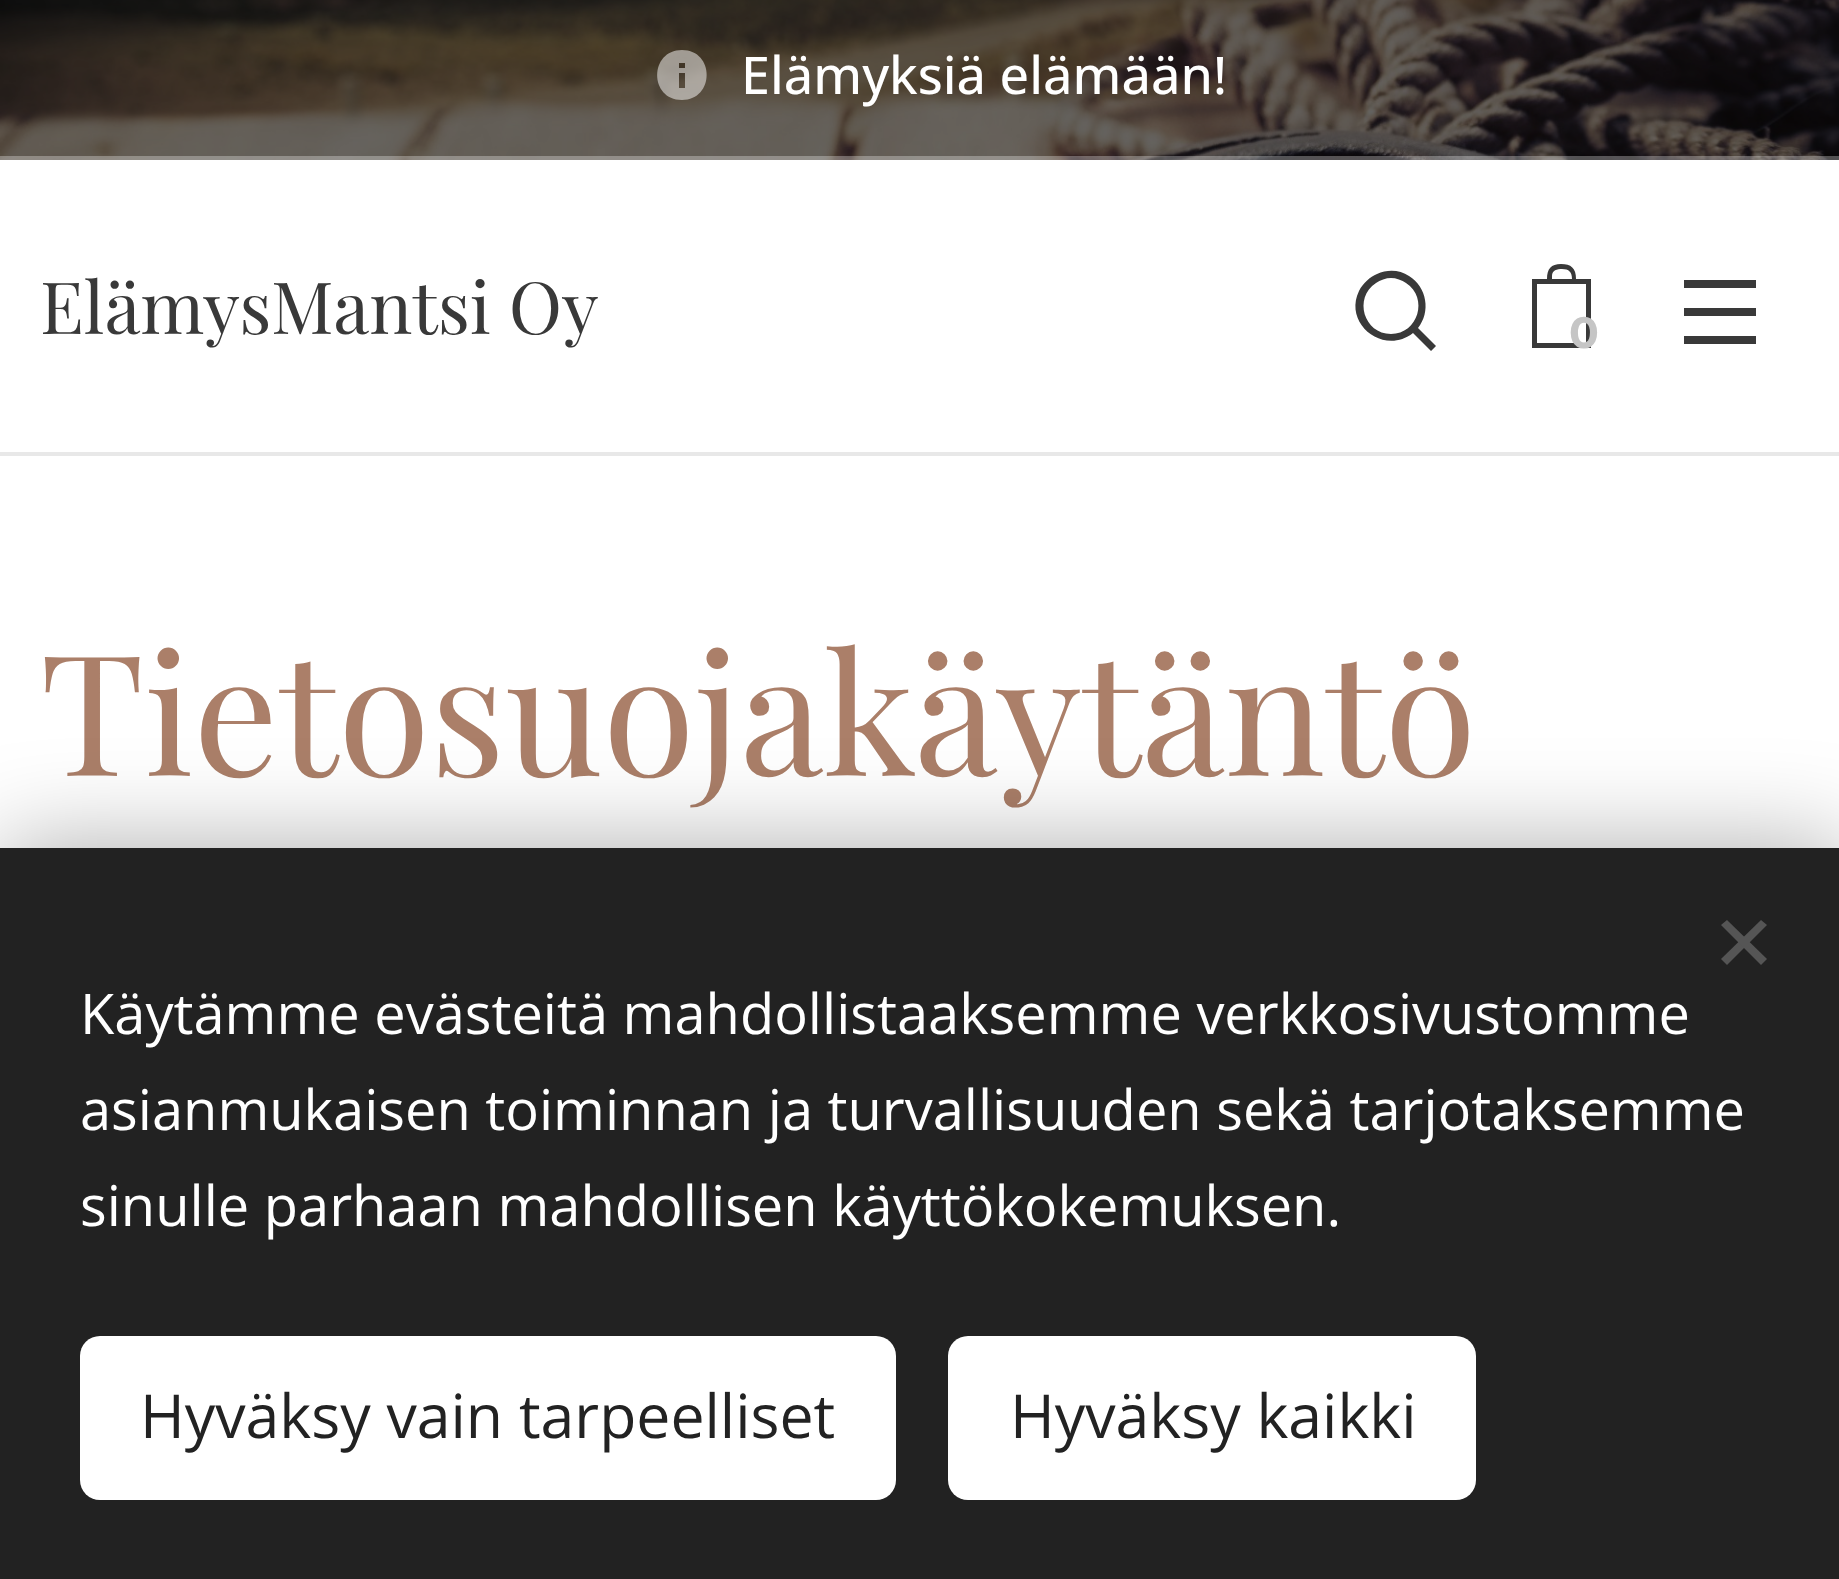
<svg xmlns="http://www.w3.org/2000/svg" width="1839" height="1579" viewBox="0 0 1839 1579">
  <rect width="100%" height="100%" fill="rgb(255,255,255)"/>
  <image x="0" y="0" width="1839" height="160" href="pic1.png"/>
  <path d="M682 50C649 50 649 100 682 100C715 100 715 50 682 50ZM685 88H679V73H685ZM685 68H679V63H685Z" fill="rgba(255,255,255,0.5)"/>
  <text x="741" y="94" font-family="Open Sans" font-size="52" font-weight="500" fill="rgb(255,255,255)">Elämyksiä elämään!</text>
  <rect x="0" y="156" width="1839" height="4" fill="rgba(255,255,255,0.3)"/>
  <text x="40" y="334" font-family="Playfair Display" font-size="72" fill="rgb(57,57,57)">ElämysMantsi Oy</text>
  <path d="M1436 346L1418 328C1431 312 1427 287 1409 276C1400 270 1388 269 1377 274C1370 277 1363 283 1359 291C1343 324 1384 356 1413 333L1431 351ZM1391 334C1364 334 1353 298 1376 283C1380 280 1386 278 1391 278C1396 278 1402 280 1406 283C1429 298 1418 334 1391 334Z" fill="rgb(57,57,57)"/>
  <path d="M1576 279C1576 268 1571 264 1561 264C1551 264 1547 269 1547 279H1532V348H1591V279ZM1552 276C1552 270 1557 269 1562 269C1569 269 1572 272 1572 279H1552ZM1586 343H1537V284H1586Z" fill="rgb(57,57,57)"/>
  <text x="1569" y="348" font-family="Montserrat" font-size="44" font-weight="bold" fill="rgb(197,197,197)">0</text>
  <rect x="1684" y="308" width="72" height="8" fill="rgb(57,57,57)"/>
  <rect x="1684" y="280" width="72" height="8" fill="rgb(57,57,57)"/>
  <rect x="1684" y="336" width="72" height="8" fill="rgb(57,57,57)"/>
  <rect x="0" y="452" width="1839" height="4" fill="rgb(232,232,232)"/>
  <text x="40" y="776" font-family="Playfair Display" font-size="168" fill="rgb(171,127,105)">Tietosuojakäytäntö</text>
  <rect x="0" y="848" width="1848" height="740" fill="rgba(0,0,0,0.33)" filter="blur(50px)"/>
  <rect x="0" y="848" width="1839" height="731" fill="rgb(34,34,34)"/>
  <path d="M1721 959L1761 920L1767 925L1727 965Z" fill="rgb(85,85,85)"/>
  <path d="M1727 920L1767 959L1761 965L1721 925Z" fill="rgb(85,85,85)"/>
  <g font-family="Open Sans" font-size="56" fill="rgb(255,255,255)">
    <text>
      <tspan x="80" y="1034">Käytämme evästeitä mahdollistaaksemme verkkosivustomme</tspan>
      <tspan x="80" y="1130">asianmukaisen toiminnan ja turvallisuuden sekä tarjotaksemme</tspan>
      <tspan x="80" y="1226">sinulle parhaan mahdollisen käyttökokemuksen.</tspan>
    </text>
  </g>
  <rect x="80" y="1336" width="816" height="164" rx="20" fill="rgb(255,255,255)"/>
  <text x="140" y="1438" font-family="Open Sans" font-size="60.75" fill="rgb(34,34,34)">Hyväksy vain tarpeelliset</text>
  <rect x="948" y="1336" width="528" height="164" rx="20" fill="rgb(255,255,255)"/>
  <text x="1010" y="1438" font-family="Open Sans" font-size="60.75" fill="rgb(34,34,34)">Hyväksy kaikki</text>
</svg>
